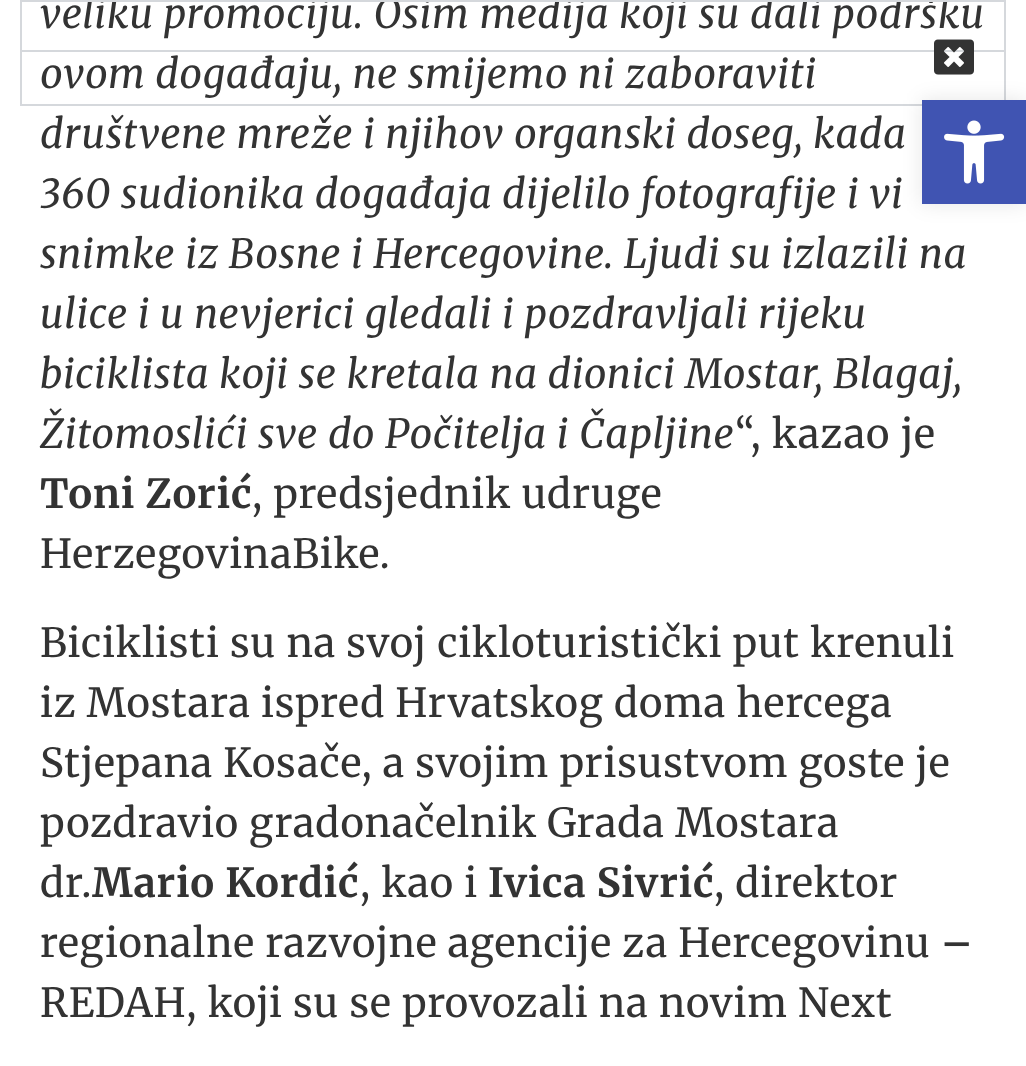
<svg xmlns="http://www.w3.org/2000/svg" width="1026" height="1066" viewBox="0 0 1026 1066">
  <rect width="100%" height="100%" fill="rgb(255,255,255)"/>
  <text x="40" y="28" font-family="Merriweather" font-size="40" font-style="italic" letter-spacing="0.8" fill="rgb(51,51,51)">veliku promociju. Osim medija koji su dali podršku</text>
  <rect x="21" y="1" width="984" height="104" fill="none" stroke="rgb(213,216,220)" stroke-width="2"/>
  <rect x="22" y="50" width="982" height="2" fill="rgb(213,216,220)"/>
  <image x="934" y="39" width="40" height="36" href="pic1.png"/>
  <g font-family="Merriweather" font-size="40" font-style="italic" letter-spacing="0.8" fill="rgb(51,51,51)">
    <text>
      <tspan x="40" y="88">ovom događaju, ne smijemo ni zaboraviti</tspan>
      <tspan x="40" y="148">društvene mreže i njihov organski doseg, kada</tspan>
      <tspan x="40" y="208">360 sudionika događaja dijelilo fotografije i vi</tspan>
      <tspan x="40" y="268">snimke iz Bosne i Hercegovine. Ljudi su izlazili na</tspan>
      <tspan x="40" y="328">ulice i u nevjerici gledali i pozdravljali rijeku</tspan>
      <tspan x="40" y="388">biciklista koji se kretala na dionici Mostar, Blagaj,</tspan>
      <tspan x="40" y="448">Žitomoslići sve do Počitelja i Čapljine</tspan>
    </text>
  </g>
  <text x="735" y="448" font-family="Merriweather" font-size="40" letter-spacing="0.8" fill="rgb(51,51,51)">“, kazao je</text>
  <text x="40" y="508" font-family="Merriweather" font-size="40" font-weight="bold" letter-spacing="0.8" fill="rgb(51,51,51)">Toni Zorić</text>
  <g font-family="Merriweather" font-size="40" letter-spacing="0.8" fill="rgb(51,51,51)">
    <text x="252" y="508">, predsjednik udruge</text>
    <text x="40" y="568">HerzegovinaBike.</text>
    <text>
      <tspan x="40" y="657">Biciklisti su na svoj cikloturistički put krenuli</tspan>
      <tspan x="40" y="717">iz Mostara ispred Hrvatskog doma hercega</tspan>
      <tspan x="40" y="777">Stjepana Kosače, a svojim prisustvom goste je</tspan>
      <tspan x="40" y="837">pozdravio gradonačelnik Grada Mostara</tspan>
      <tspan x="40" y="897">dr.</tspan>
    </text>
  </g>
  <text x="92" y="897" font-family="Merriweather" font-size="40" font-weight="bold" letter-spacing="0.8" fill="rgb(51,51,51)">Mario Kordić</text>
  <text x="360" y="897" font-family="Merriweather" font-size="40" letter-spacing="0.8" fill="rgb(51,51,51)">, kao i</text>
  <text x="488" y="897" font-family="Merriweather" font-size="40" font-weight="bold" letter-spacing="0.8" fill="rgb(51,51,51)">Ivica Sivrić</text>
  <g font-family="Merriweather" font-size="40" letter-spacing="0.8" fill="rgb(51,51,51)">
    <text x="714" y="897">, direktor</text>
    <text x="40" y="957">regionalne razvojne agencije za Hercegovinu</text>
  </g>
  <text x="941" y="957" font-family="Merriweather" font-size="40" font-weight="bold" letter-spacing="0.8" fill="rgb(51,51,51)">–</text>
  <text x="40" y="1017" font-family="Merriweather" font-size="40" letter-spacing="0.8" fill="rgb(51,51,51)">REDAH, koji su se provozali na novim Next</text>
  <rect x="922" y="100" width="104" height="104" fill="rgba(0,0,0,0.1)" filter="blur(10px)"/>
  <rect x="922" y="100" width="104" height="104" fill="rgb(64,84,178)"/>
  <image x="944" y="120" width="61" height="64" href="pic2.png"/>
</svg>
